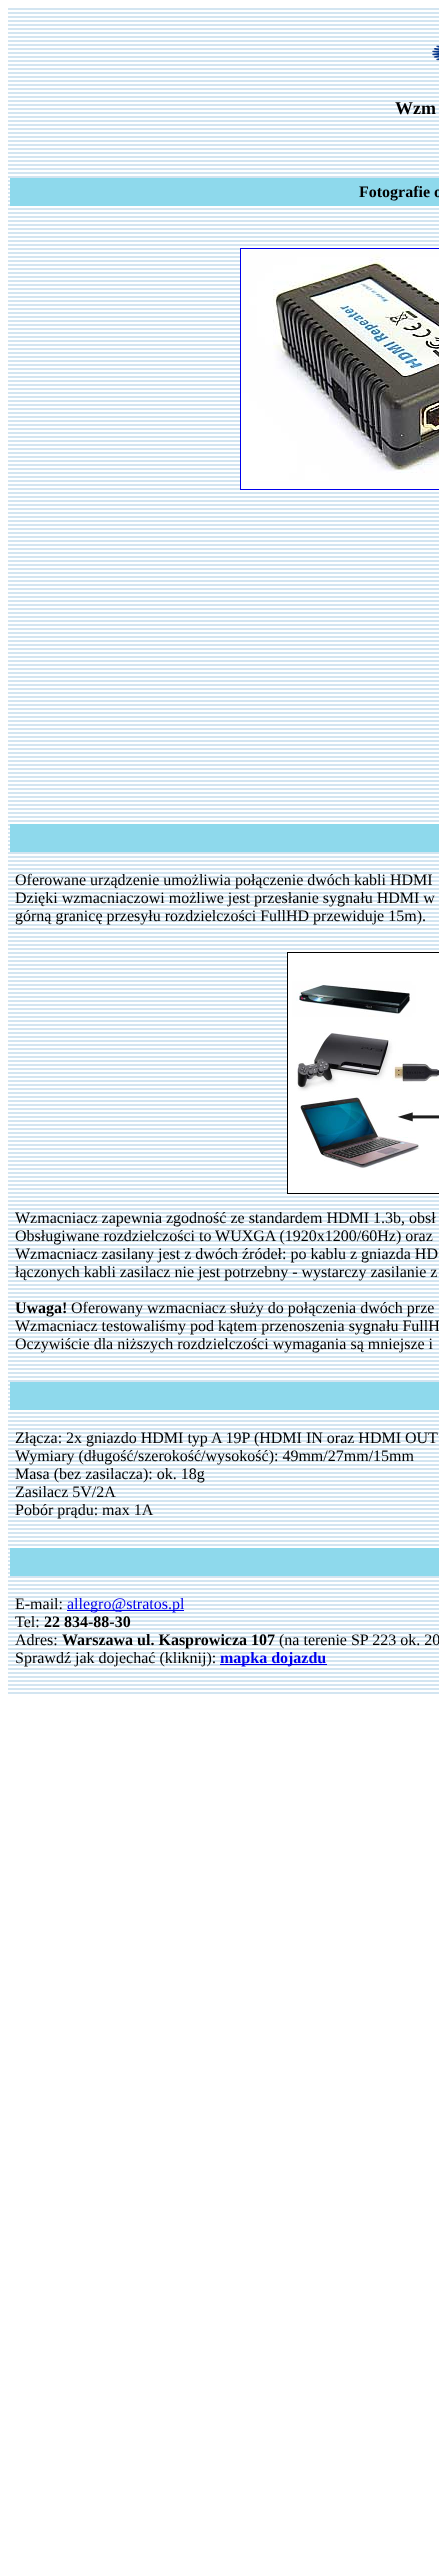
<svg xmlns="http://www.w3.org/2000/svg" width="439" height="2570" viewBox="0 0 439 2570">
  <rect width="100%" height="100%" fill="rgb(255,255,255)"/>
  <image x="8" y="8" width="431" height="1686" href="pic1.png"/>
  <image x="432" y="45" width="7" height="16" href="pic2.png"/>
  <text x="395" y="114" font-family="Liberation Serif" font-size="18" font-weight="bold" fill="rgb(0,0,0)">Wzm</text>
  <rect x="10" y="178" width="429" height="28" fill="rgb(142,217,236)"/>
  <text x="359" y="197" font-family="Liberation Serif" font-size="16" font-weight="bold" fill="rgb(0,0,0)">Fotografie o</text>
  <rect x="240.5" y="248.5" width="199" height="241" fill="none" stroke="rgb(0,0,238)"/>
  <image x="241" y="249" width="198" height="240" href="pic3.png"/>
  <rect x="10" y="824" width="429" height="28" fill="rgb(142,217,236)"/>
  <g font-family="Liberation Serif" font-size="16" fill="rgb(0,0,0)">
    <text>
      <tspan x="15" y="885">Oferowane urządzenie umożliwia połączenie dwóch kabli HDMI</tspan>
      <tspan x="15" y="903">Dzięki wzmacniaczowi możliwe jest przesłanie sygnału HDMI w</tspan>
      <tspan x="15" y="921">górną granicę przesyłu rozdzielczości FullHD przewiduje 15m).</tspan>
    </text>
  </g>
  <rect x="287.5" y="952.5" width="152" height="241" fill="none" stroke="rgb(0,0,0)"/>
  <image x="288" y="953" width="151" height="240" href="pic4.png"/>
  <g font-family="Liberation Serif" font-size="16" fill="rgb(0,0,0)">
    <text>
      <tspan x="15" y="1223">Wzmacniacz zapewnia zgodność ze standardem HDMI 1.3b, obsł</tspan>
      <tspan x="15" y="1241">Obsługiwane rozdzielczości to WUXGA (1920x1200/60Hz) oraz</tspan>
      <tspan x="15" y="1259">Wzmacniacz zasilany jest z dwóch źródeł: po kablu z gniazda HD</tspan>
      <tspan x="15" y="1277">łączonych kabli zasilacz nie jest potrzebny - wystarczy zasilanie z</tspan>
    </text>
  </g>
  <text x="15" y="1313" font-family="Liberation Serif" font-size="16" font-weight="bold" fill="rgb(0,0,0)">Uwaga!</text>
  <g font-family="Liberation Serif" font-size="16" fill="rgb(0,0,0)">
    <text x="71" y="1313">Oferowany wzmacniacz służy do połączenia dwóch prze</text>
    <text>
      <tspan x="15" y="1331">Wzmacniacz testowaliśmy pod kątem przenoszenia sygnału FullH</tspan>
      <tspan x="15" y="1349">Oczywiście dla niższych rozdzielczości wymagania są mniejsze i</tspan>
    </text>
  </g>
  <rect x="10" y="1382" width="429" height="28" fill="rgb(142,217,236)"/>
  <g font-family="Liberation Serif" font-size="16" fill="rgb(0,0,0)">
    <text>
      <tspan x="15" y="1443">Złącza: 2x gniazdo HDMI typ A 19P (HDMI IN oraz HDMI OUT</tspan>
      <tspan x="15" y="1461">Wymiary (długość/szerokość/wysokość): 49mm/27mm/15mm</tspan>
      <tspan x="15" y="1479">Masa (bez zasilacza): ok. 18g</tspan>
      <tspan x="15" y="1497">Zasilacz 5V/2A</tspan>
      <tspan x="15" y="1515">Pobór prądu: max 1A</tspan>
    </text>
  </g>
  <rect x="10" y="1548" width="429" height="28" fill="rgb(142,217,236)"/>
  <text x="15" y="1609" font-family="Liberation Serif" font-size="16" fill="rgb(0,0,0)">E-mail:</text>
  <rect x="67" y="1610" width="117" height="1" fill="rgb(0,0,238)"/>
  <text x="67" y="1609" font-family="Liberation Serif" font-size="16" fill="rgb(0,0,238)">allegro@stratos.pl</text>
  <text x="15" y="1627" font-family="Liberation Serif" font-size="16" fill="rgb(0,0,0)">Tel:</text>
  <text x="44" y="1627" font-family="Liberation Serif" font-size="16" font-weight="bold" fill="rgb(0,0,0)">22 834-88-30</text>
  <text x="15" y="1645" font-family="Liberation Serif" font-size="16" fill="rgb(0,0,0)">Adres:</text>
  <text x="62" y="1645" font-family="Liberation Serif" font-size="16" font-weight="bold" fill="rgb(0,0,0)">Warszawa ul. Kasprowicza 107</text>
  <g font-family="Liberation Serif" font-size="16" fill="rgb(0,0,0)">
    <text x="279" y="1645">(na terenie SP 223 ok. 20</text>
    <text x="15" y="1663">Sprawdź jak dojechać (kliknij):</text>
  </g>
  <rect x="220" y="1664" width="107" height="1" fill="rgb(0,0,238)"/>
  <text x="220" y="1663" font-family="Liberation Serif" font-size="16" font-weight="bold" fill="rgb(0,0,238)">mapka dojazdu</text>
</svg>
